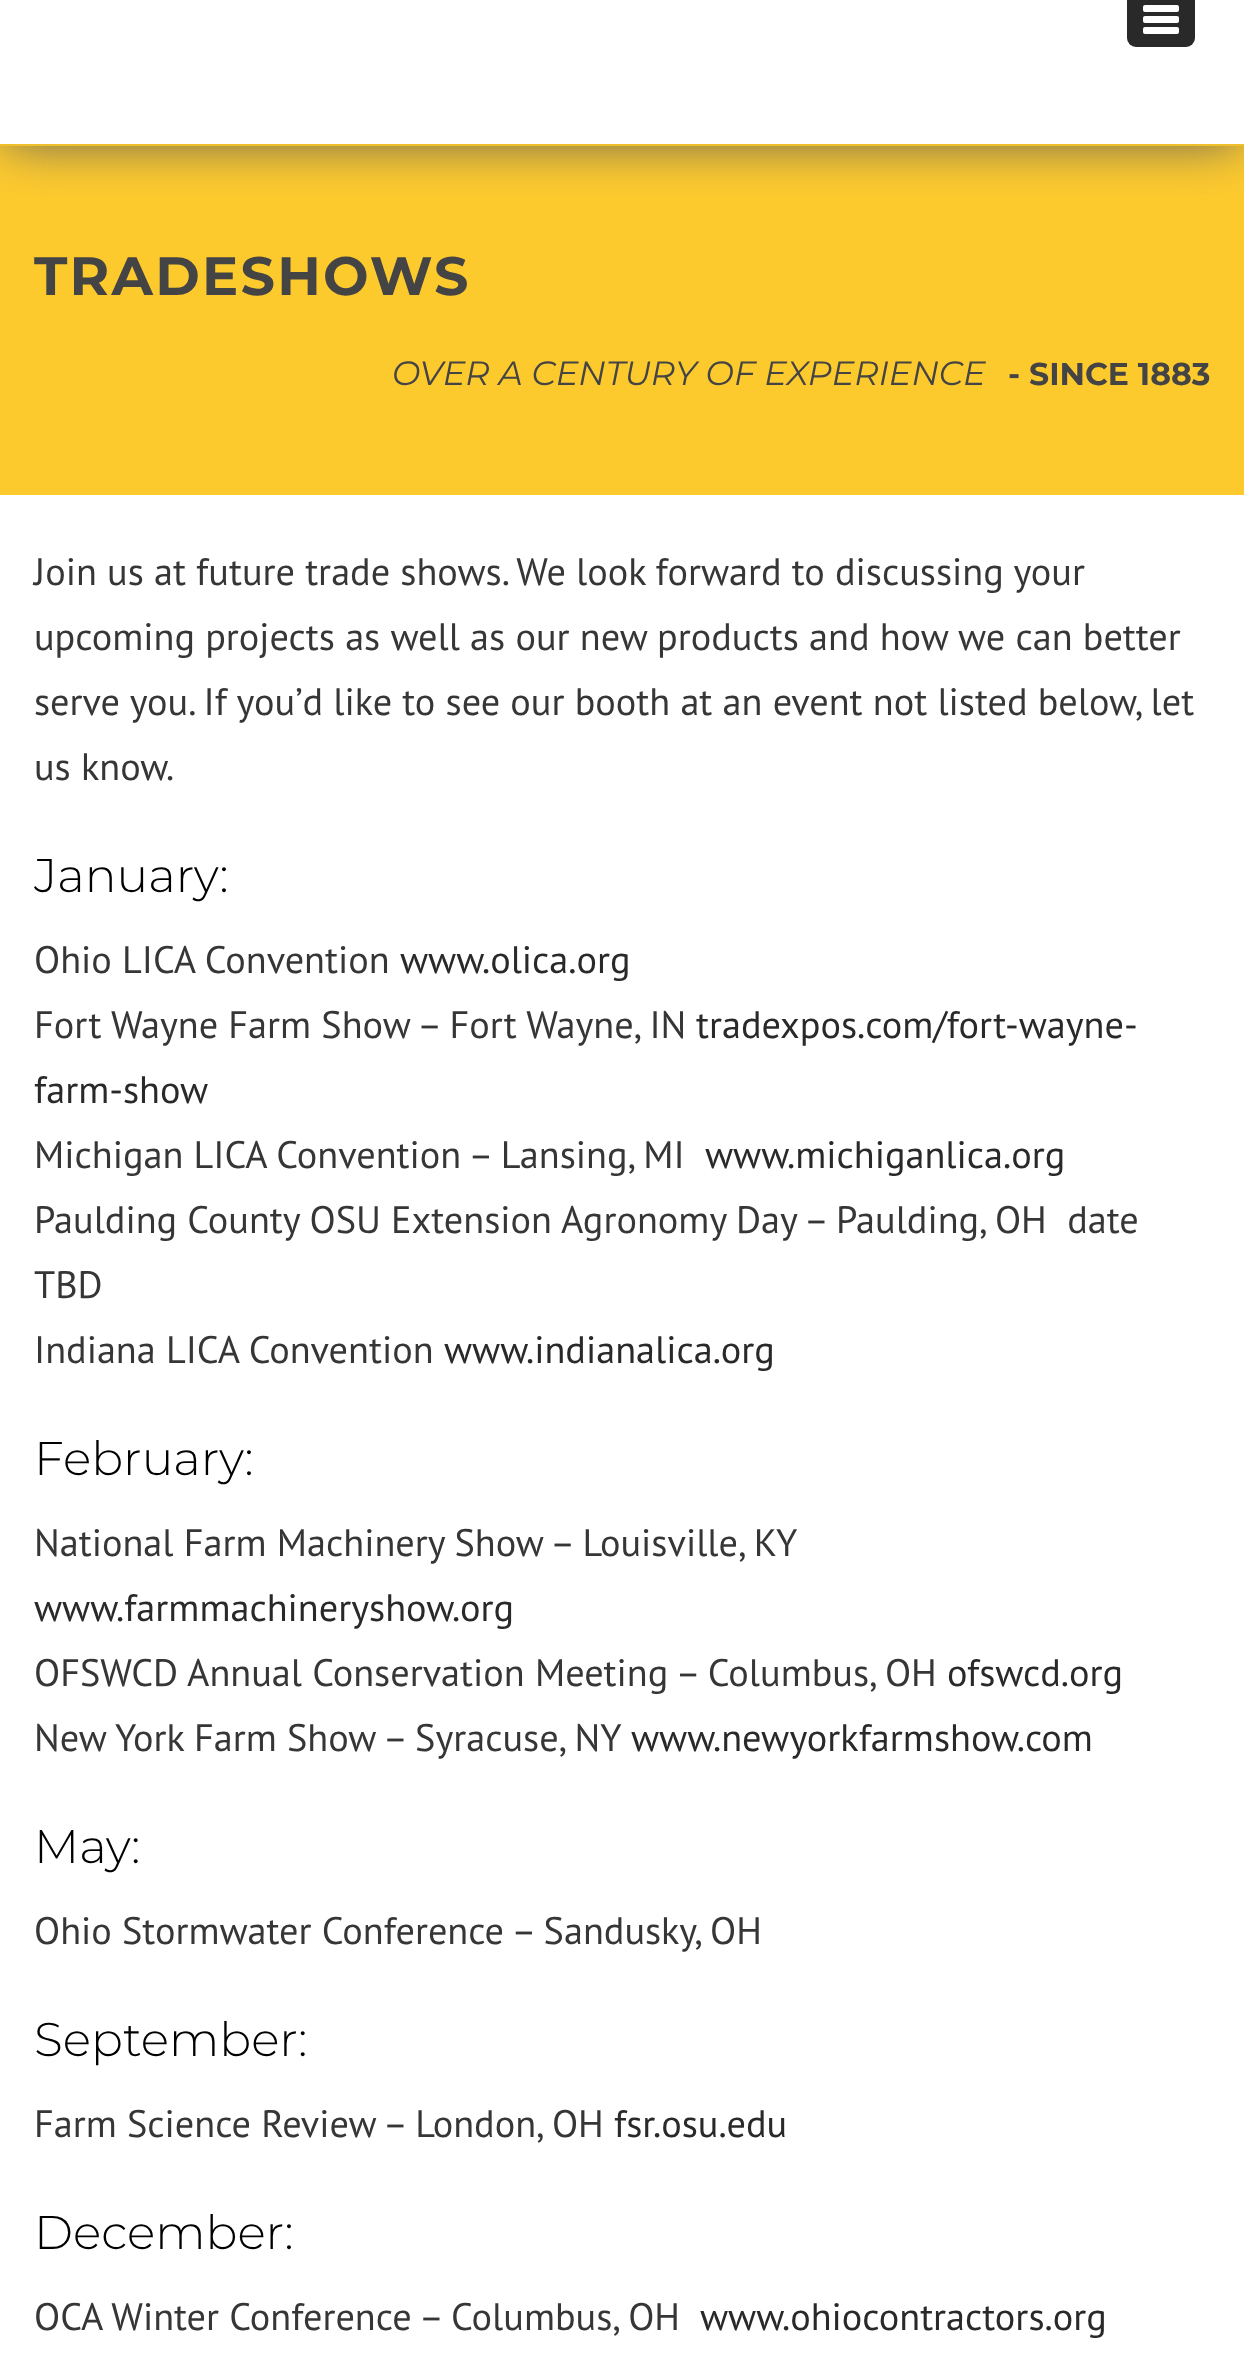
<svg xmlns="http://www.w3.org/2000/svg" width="1244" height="2370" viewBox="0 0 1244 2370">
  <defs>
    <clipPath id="clip1"><rect x="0" y="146" width="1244" height="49"/></clipPath>
  </defs>
  <rect width="100%" height="100%" fill="rgb(255,255,255)"/>
  <rect x="0" y="146" width="1244" height="349" fill="rgb(253,202,46)"/>
  <g clip-path="url(#clip1)">
    <rect x="5" y="-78" width="1235" height="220" fill="rgb(92,92,92)" filter="blur(26px)"/>
  </g>
  <rect x="0" y="144" width="1244" height="2" fill="rgb(240,192,44)"/>
  <rect x="1127" y="-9" width="68" height="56" rx="9" fill="rgb(41,41,41)"/>
  <rect x="1143" y="5" width="36" height="7" rx="2" fill="rgb(255,255,255)"/>
  <rect x="1143" y="16" width="36" height="7" rx="2" fill="rgb(255,255,255)"/>
  <rect x="1143" y="27" width="36" height="7" rx="2" fill="rgb(255,255,255)"/>
  <text x="34" y="295" font-family="Montserrat" font-size="54" font-weight="bold" letter-spacing="2.25" fill="rgb(68,68,68)">TRADESHOWS</text>
  <text x="392" y="385" font-family="Montserrat" font-size="33.75" font-weight="100" font-style="italic" fill="rgb(68,68,68)">OVER A CENTURY OF EXPERIENCE</text>
  <text x="1008" y="385" font-family="Montserrat" font-size="31.5" font-weight="bold" fill="rgb(68,68,68)">- SINCE 1883</text>
  <g font-family="PT Sans" font-size="38.25" fill="rgb(54,54,54)">
    <text>
      <tspan x="34" y="585">Join us at future trade shows. We look forward to discussing your</tspan>
      <tspan x="34" y="650">upcoming projects as well as our new products and how we can better</tspan>
      <tspan x="34" y="715">serve you. If you’d like to see our booth at an event not listed below, let</tspan>
      <tspan x="34" y="780">us know.</tspan>
    </text>
  </g>
  <text x="34" y="892" font-family="Montserrat" font-size="47.25" font-weight="300" fill="rgb(0,0,0)">January:</text>
  <text x="34" y="973" font-family="PT Sans" font-size="38.25" fill="rgb(54,54,54)">Ohio LICA Convention</text>
  <text x="400" y="973" font-family="PT Sans" font-size="38.25" fill="rgb(41,41,41)">www.olica.org</text>
  <text x="34" y="1038" font-family="PT Sans" font-size="38.25" fill="rgb(54,54,54)">Fort Wayne Farm Show – Fort Wayne, IN</text>
  <g font-family="PT Sans" font-size="38.25" fill="rgb(41,41,41)">
    <text x="696" y="1038">tradexpos.com/fort-wayne-</text>
    <text x="34" y="1103">farm-show</text>
  </g>
  <text x="34" y="1168" font-family="PT Sans" font-size="38.25" fill="rgb(54,54,54)">Michigan LICA Convention – Lansing, MI</text>
  <text x="705" y="1168" font-family="PT Sans" font-size="38.25" fill="rgb(41,41,41)">www.michiganlica.org</text>
  <g font-family="PT Sans" font-size="38.25" fill="rgb(54,54,54)">
    <text xml:space="preserve"><tspan x="34" y="1233">Paulding County OSU Extension Agronomy Day – Paulding, OH  date</tspan><tspan x="34" y="1298">TBD</tspan><tspan x="34" y="1363">Indiana LICA Convention</tspan></text>
  </g>
  <text x="444" y="1363" font-family="PT Sans" font-size="38.25" fill="rgb(41,41,41)">www.indianalica.org</text>
  <text x="34" y="1475" font-family="Montserrat" font-size="47.25" font-weight="300" fill="rgb(0,0,0)">February:</text>
  <text x="34" y="1556" font-family="PT Sans" font-size="38.25" fill="rgb(54,54,54)">National Farm Machinery Show – Louisville, KY</text>
  <text x="34" y="1621" font-family="PT Sans" font-size="38.25" fill="rgb(41,41,41)">www.farmmachineryshow.org</text>
  <text x="34" y="1686" font-family="PT Sans" font-size="38.25" fill="rgb(54,54,54)">OFSWCD Annual Conservation Meeting – Columbus, OH</text>
  <text x="947" y="1686" font-family="PT Sans" font-size="38.25" fill="rgb(41,41,41)">ofswcd.org</text>
  <text x="34" y="1751" font-family="PT Sans" font-size="38.25" fill="rgb(54,54,54)">New York Farm Show – Syracuse, NY</text>
  <text x="631" y="1751" font-family="PT Sans" font-size="38.25" fill="rgb(41,41,41)">www.newyorkfarmshow.com</text>
  <text x="34" y="1863" font-family="Montserrat" font-size="47.25" font-weight="300" fill="rgb(0,0,0)">May:</text>
  <text x="34" y="1944" font-family="PT Sans" font-size="38.25" fill="rgb(54,54,54)">Ohio Stormwater Conference – Sandusky, OH</text>
  <text x="34" y="2056" font-family="Montserrat" font-size="47.25" font-weight="300" fill="rgb(0,0,0)">September:</text>
  <text x="34" y="2137" font-family="PT Sans" font-size="38.25" fill="rgb(54,54,54)">Farm Science Review – London, OH</text>
  <text x="614" y="2137" font-family="PT Sans" font-size="38.25" fill="rgb(41,41,41)">fsr.osu.edu</text>
  <text x="34" y="2249" font-family="Montserrat" font-size="47.25" font-weight="300" fill="rgb(0,0,0)">December:</text>
  <text x="34" y="2330" font-family="PT Sans" font-size="38.25" fill="rgb(54,54,54)">OCA Winter Conference – Columbus, OH</text>
  <text x="700" y="2330" font-family="PT Sans" font-size="38.25" fill="rgb(41,41,41)">www.ohiocontractors.org</text>
</svg>
